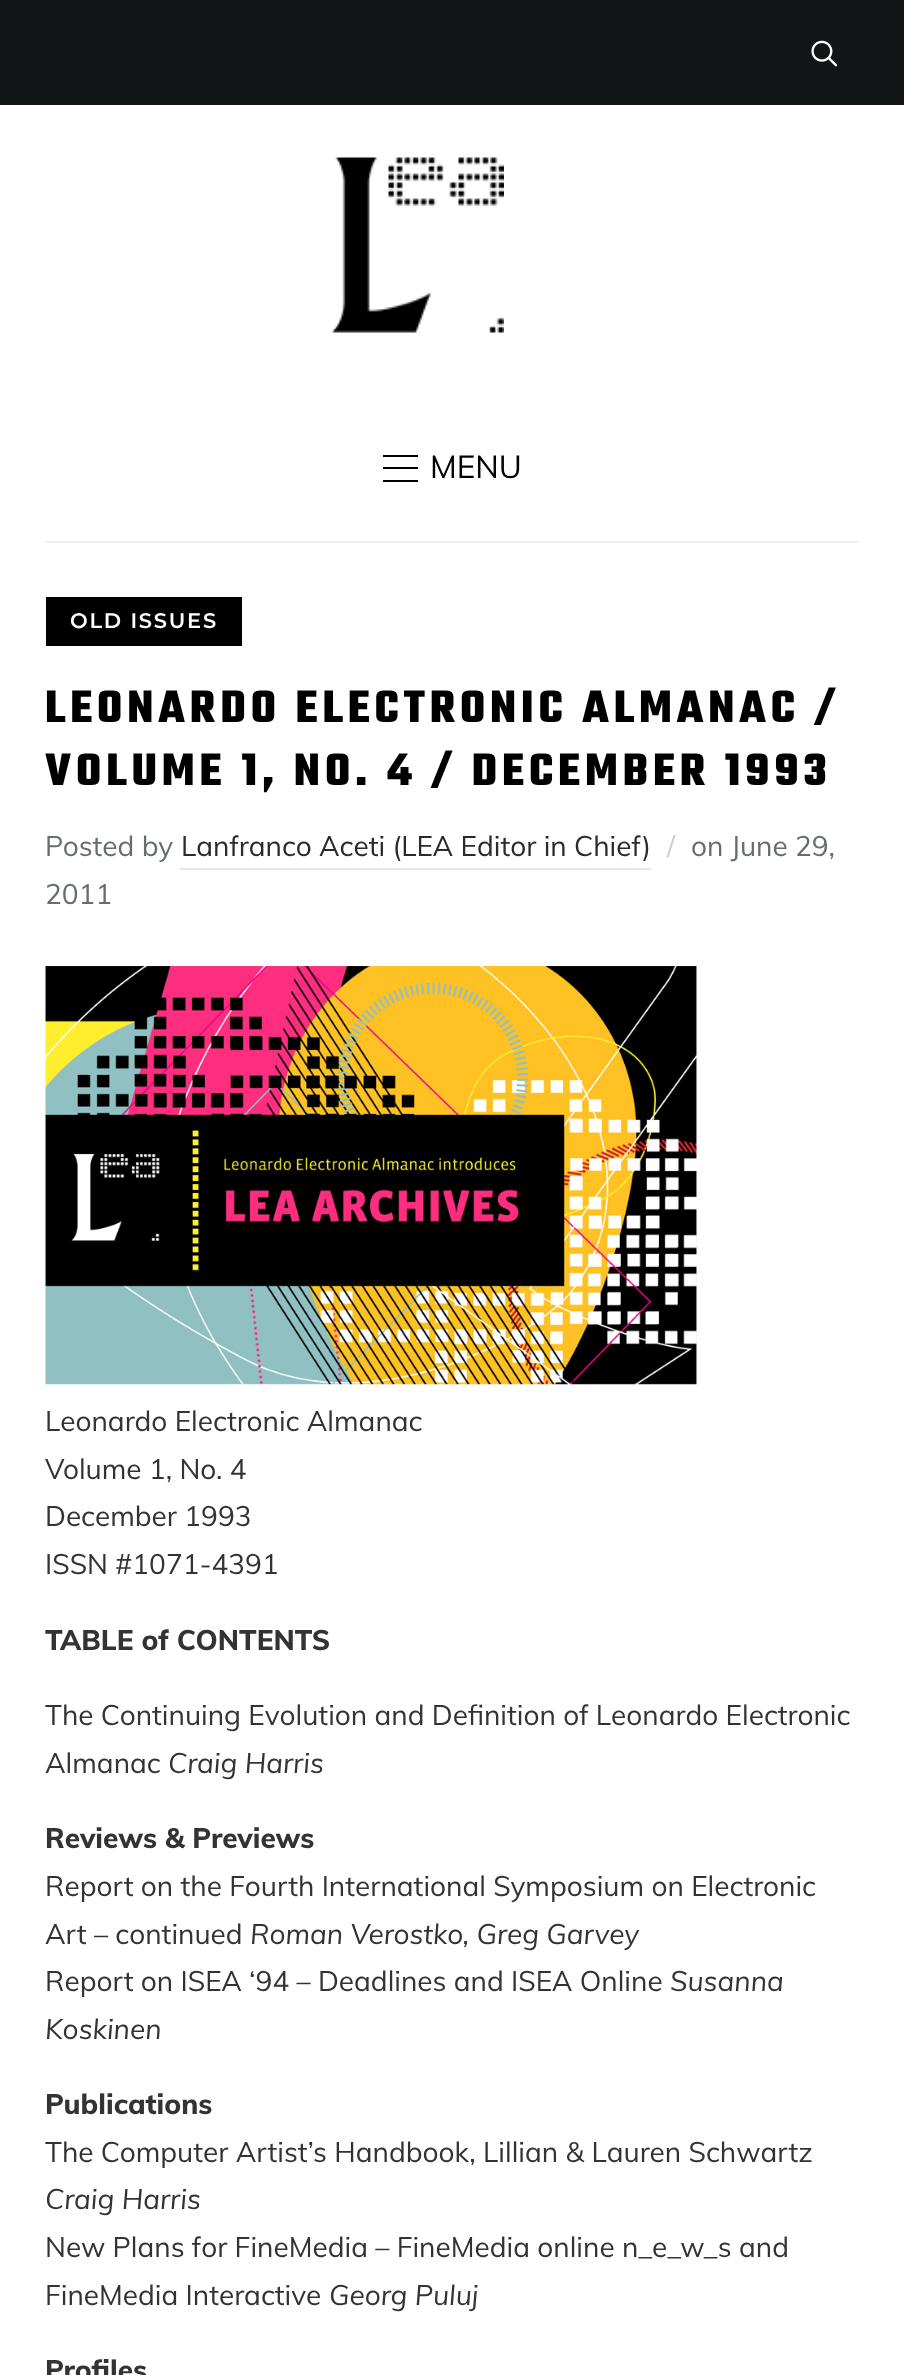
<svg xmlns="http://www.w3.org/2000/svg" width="904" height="2375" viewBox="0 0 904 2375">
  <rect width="100%" height="100%" fill="rgb(255,255,255)"/>
  <rect x="0" y="0" width="904" height="105" fill="rgb(18,21,22)"/>
  <image x="811" y="40" width="27" height="27" href="pic1.png"/>
  <image x="332" y="157" width="172" height="176" href="pic2.png"/>
  <rect x="46" y="541" width="813" height="2" fill="rgb(240,240,240)"/>
  <rect x="383" y="455" width="35" height="2" fill="rgb(0,0,0)"/>
  <rect x="383" y="467" width="35" height="2" fill="rgb(0,0,0)"/>
  <rect x="383" y="480" width="35" height="2" fill="rgb(0,0,0)"/>
  <text x="430" y="478" font-family="Muli" font-size="31.5" fill="rgb(0,0,0)">MENU</text>
  <rect x="46" y="597" width="196" height="49" fill="rgb(0,0,0)"/>
  <text x="70" y="628" font-family="Montserrat" font-size="21" font-weight="600" letter-spacing="1.75" fill="rgb(255,255,255)">OLD ISSUES</text>
  <g font-family="Teko" font-size="49" font-weight="bold" letter-spacing="4.9" fill="rgb(0,0,0)">
    <text>
      <tspan x="45" y="722">LEONARDO ELECTRONIC ALMANAC /</tspan>
      <tspan x="45" y="785">VOLUME 1, NO. 4 / DECEMBER 1993</tspan>
    </text>
  </g>
  <text x="45" y="856" font-family="Muli" font-size="28" fill="rgb(103,108,113)">Posted by</text>
  <text x="181" y="856" font-family="Muli" font-size="28" fill="rgb(42,42,42)">Lanfranco Aceti (LEA Editor in Chief)</text>
  <rect x="180" y="868" width="471" height="2" fill="rgb(232,232,232)"/>
  <text x="667" y="856" font-family="Muli" font-size="28" fill="rgb(204,207,207)">/</text>
  <g font-family="Muli" font-size="28" fill="rgb(103,108,113)">
    <text x="691" y="856">on June 29,</text>
    <text x="45" y="904">2011</text>
  </g>
  <image x="45" y="966" width="652" height="419" href="pic3.png"/>
  <g font-family="Muli" font-size="28" fill="rgb(51,51,51)">
    <text>
      <tspan x="45" y="1431">Leonardo Electronic Almanac</tspan>
      <tspan x="45" y="1479">Volume 1, No. 4</tspan>
      <tspan x="45" y="1526">December 1993</tspan>
      <tspan x="45" y="1574">ISSN #1071-4391</tspan>
    </text>
  </g>
  <text x="45" y="1650" font-family="Muli" font-size="28" font-weight="800" fill="rgb(51,51,51)">TABLE of CONTENTS</text>
  <g font-family="Muli" font-size="28" fill="rgb(51,51,51)">
    <text>
      <tspan x="45" y="1725">The Continuing Evolution and Definition of Leonardo Electronic</tspan>
      <tspan x="45" y="1773">Almanac</tspan>
    </text>
  </g>
  <text x="168" y="1773" font-family="Muli" font-size="28" font-style="italic" fill="rgb(51,51,51)">Craig Harris</text>
  <text x="45" y="1848" font-family="Muli" font-size="28" font-weight="800" fill="rgb(51,51,51)">Reviews &amp; Previews</text>
  <g font-family="Muli" font-size="28" fill="rgb(51,51,51)">
    <text>
      <tspan x="45" y="1896">Report on the Fourth International Symposium on Electronic</tspan>
      <tspan x="45" y="1944">Art – continued</tspan>
    </text>
  </g>
  <text x="250" y="1944" font-family="Muli" font-size="28" font-style="italic" fill="rgb(51,51,51)">Roman Verostko, Greg Garvey</text>
  <text x="45" y="1991" font-family="Muli" font-size="28" fill="rgb(51,51,51)">Report on ISEA ‘94 – Deadlines and ISEA Online</text>
  <g font-family="Muli" font-size="28" font-style="italic" fill="rgb(51,51,51)">
    <text x="670" y="1991">Susanna</text>
    <text x="45" y="2039">Koskinen</text>
  </g>
  <text x="45" y="2114" font-family="Muli" font-size="28" font-weight="800" fill="rgb(51,51,51)">Publications</text>
  <text x="45" y="2162" font-family="Muli" font-size="28" fill="rgb(51,51,51)">The Computer Artist’s Handbook, Lillian &amp; Lauren Schwartz</text>
  <text x="45" y="2209" font-family="Muli" font-size="28" font-style="italic" fill="rgb(51,51,51)">Craig Harris</text>
  <g font-family="Muli" font-size="28" fill="rgb(51,51,51)">
    <text>
      <tspan x="45" y="2257">New Plans for FineMedia – FineMedia online n_e_w_s and</tspan>
      <tspan x="45" y="2305">FineMedia Interactive</tspan>
    </text>
  </g>
  <text x="329" y="2305" font-family="Muli" font-size="28" font-style="italic" fill="rgb(51,51,51)">Georg Puluj</text>
  <text x="45" y="2380" font-family="Muli" font-size="28" font-weight="800" fill="rgb(51,51,51)">Profiles</text>
</svg>
